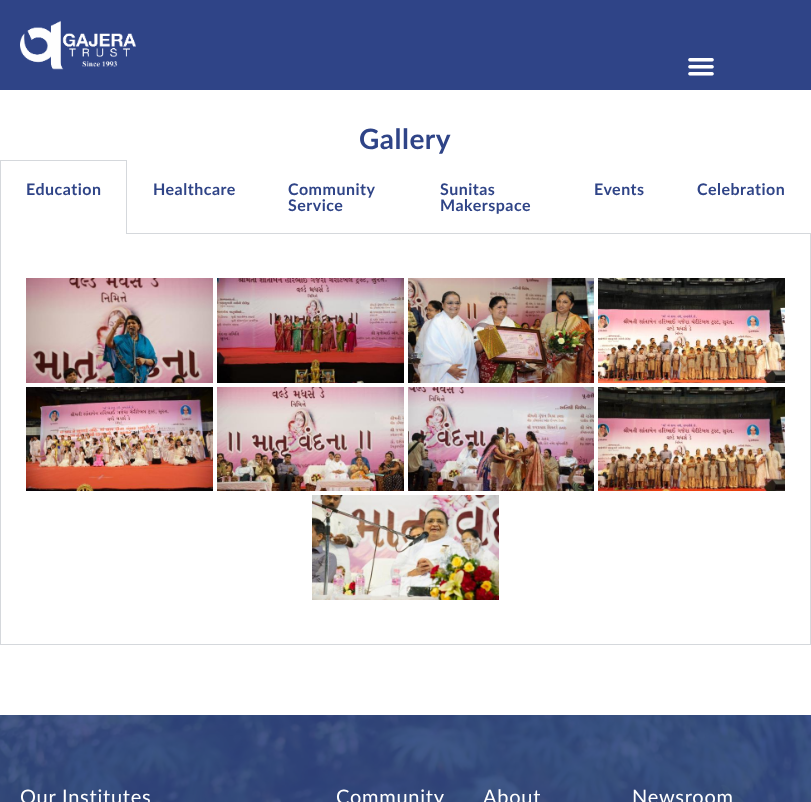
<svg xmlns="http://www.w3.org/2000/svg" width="811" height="802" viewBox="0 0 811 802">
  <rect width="100%" height="100%" fill="rgb(255,255,255)"/>
  <rect x="0" y="0" width="811" height="90" fill="rgb(47,68,135)"/>
  <image x="20" y="20" width="116" height="50" href="pic1.png"/>
  <image x="688" y="58" width="26" height="18" href="pic2.png"/>
  <text x="359" y="149" font-family="Lato" font-size="28" font-weight="bold" letter-spacing="0.5" fill="rgb(47,68,135)">Gallery</text>
  <rect x="0" y="160" width="127" height="1" fill="rgb(213,216,220)"/>
  <rect x="126" y="160" width="1" height="74" fill="rgb(213,216,220)"/>
  <rect x="0" y="160" width="1" height="74" fill="rgb(213,216,220)"/>
  <text x="26" y="195" font-family="Lato" font-size="16" font-weight="bold" letter-spacing="0.5" fill="rgb(47,68,135)">Education</text>
  <rect x="126" y="233" width="685" height="1" fill="rgb(213,216,220)"/>
  <g font-family="Lato" font-size="16" font-weight="bold" letter-spacing="0.5" fill="rgb(47,68,135)">
    <text x="153" y="195">Healthcare</text>
    <text>
      <tspan x="288" y="195">Community</tspan>
      <tspan x="288" y="211">Service</tspan>
    </text>
    <text>
      <tspan x="440" y="195">Sunitas</tspan>
      <tspan x="440" y="211">Makerspace</tspan>
    </text>
    <text x="594" y="195">Events</text>
    <text x="697" y="195">Celebration</text>
  </g>
  <rect x="810" y="234" width="1" height="411" fill="rgb(213,216,220)"/>
  <rect x="0" y="644" width="811" height="1" fill="rgb(213,216,220)"/>
  <rect x="0" y="234" width="1" height="411" fill="rgb(213,216,220)"/>
  <image x="26" y="278" width="187" height="105" href="pic3.png"/>
  <image x="217" y="278" width="187" height="105" href="pic4.png"/>
  <image x="408" y="278" width="186" height="105" href="pic5.png"/>
  <image x="598" y="278" width="187" height="105" href="pic6.png"/>
  <image x="26" y="387" width="187" height="104" href="pic7.png"/>
  <image x="217" y="387" width="187" height="104" href="pic8.png"/>
  <image x="408" y="387" width="186" height="104" href="pic9.png"/>
  <image x="598" y="387" width="187" height="104" href="pic10.png"/>
  <image x="312" y="495" width="187" height="105" href="pic11.png"/>
  <image x="0" y="715" width="811" height="87" href="pic12.png"/>
  <g font-family="Lato" font-size="20" letter-spacing="0.75" fill="rgb(255,255,255)">
    <text x="20" y="804">Our Institutes</text>
    <text x="336" y="804">Community</text>
    <text x="483" y="804">About</text>
    <text x="632" y="804">Newsroom</text>
  </g>
</svg>
